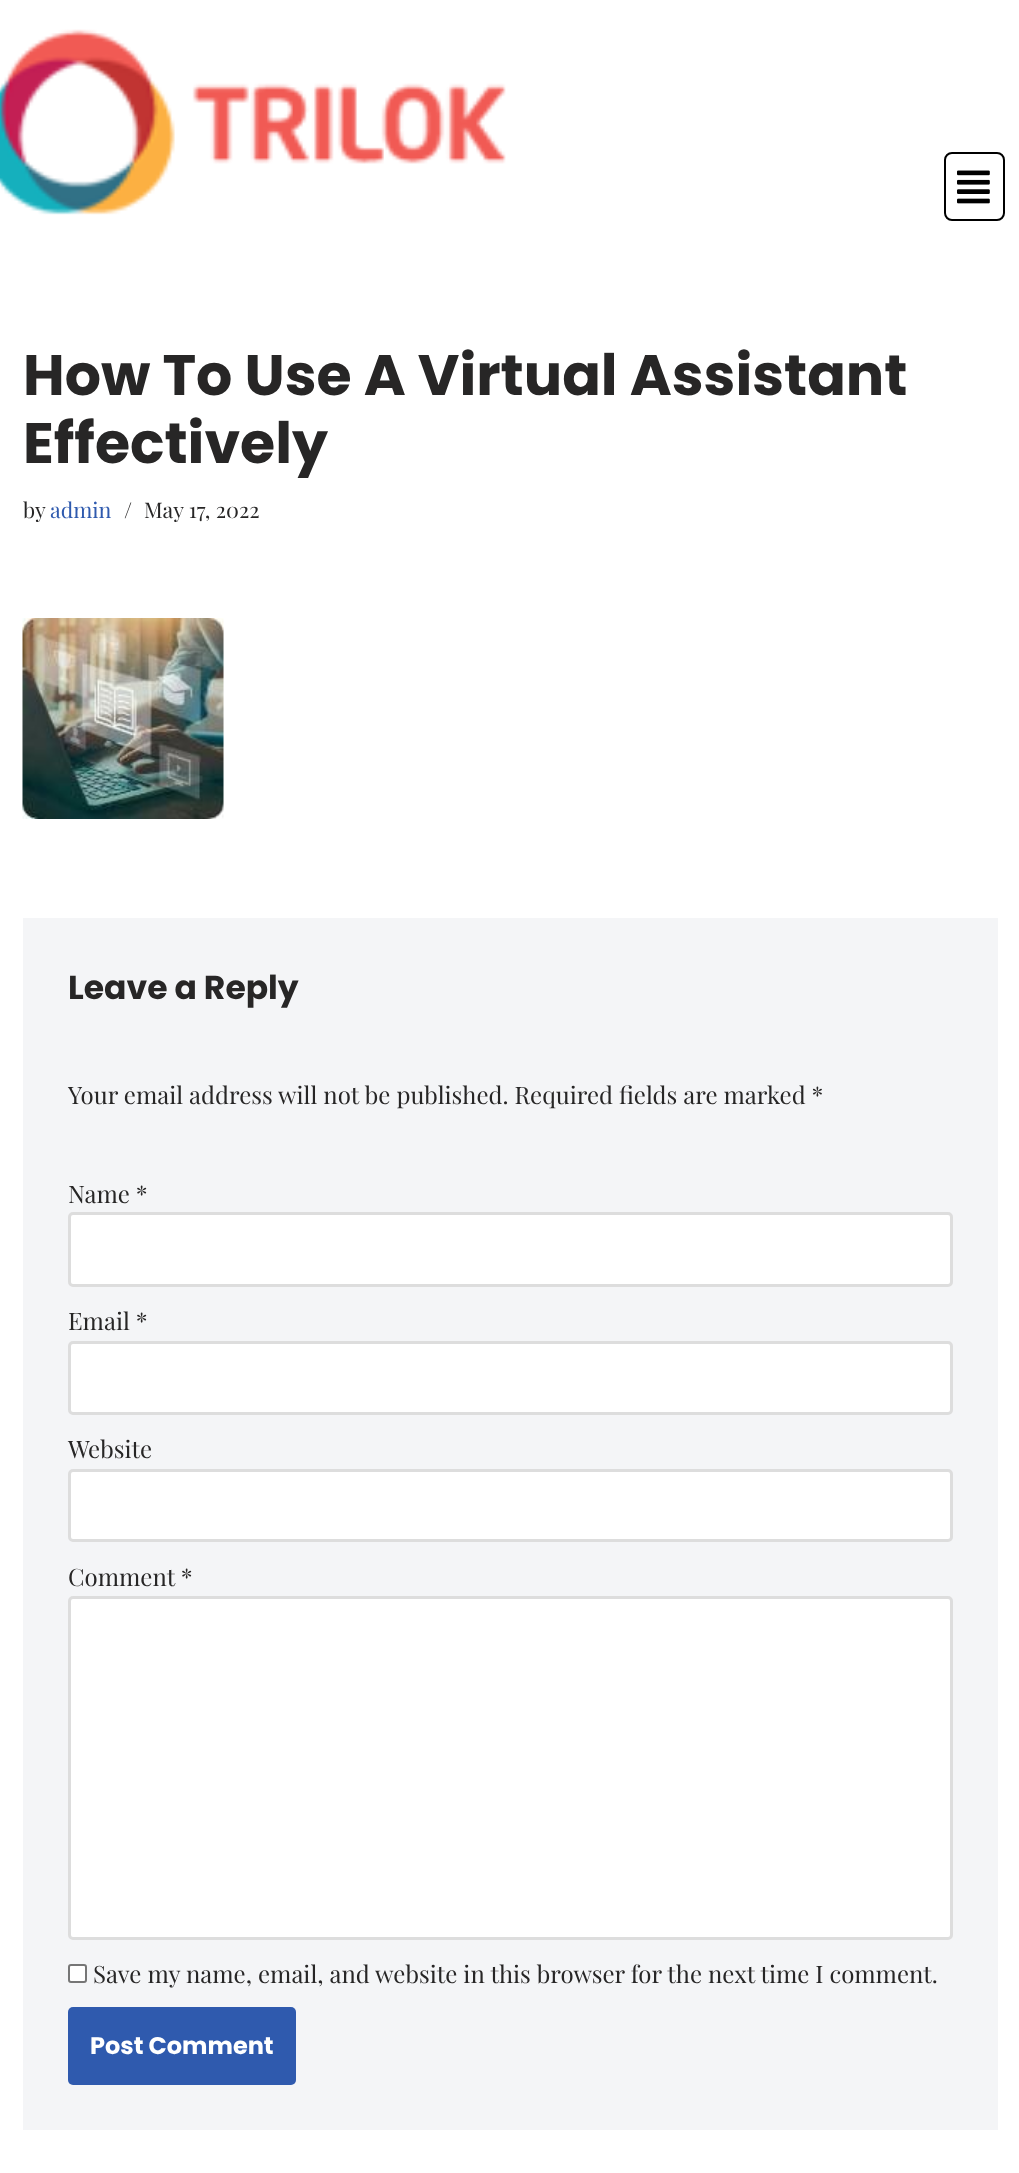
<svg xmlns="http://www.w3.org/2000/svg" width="1019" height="2173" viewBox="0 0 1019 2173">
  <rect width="100%" height="100%" fill="rgb(255,255,255)"/>
  <image x="0" y="29" width="506" height="186" href="pic1.png"/>
  <rect x="945" y="153" width="59" height="67" rx="7" fill="none" stroke="rgb(0,0,0)" stroke-width="2"/>
  <image x="957" y="170" width="33" height="34" href="pic2.png"/>
  <g font-family="Poppins" font-size="57" font-weight="bold" fill="rgb(39,38,38)">
    <text>
      <tspan x="23" y="395">How To Use A Virtual Assistant</tspan>
      <tspan x="23" y="463">Effectively</tspan>
    </text>
  </g>
  <text x="23" y="518" font-family="Playfair Display" font-size="21.5" fill="rgb(39,38,38)">by</text>
  <text x="50" y="518" font-family="Playfair Display" font-size="21.5" fill="rgb(47,90,174)">admin</text>
  <g font-family="Playfair Display" font-size="21.5" fill="rgb(39,38,38)">
    <text x="124" y="518">/</text>
    <text x="144" y="518">May 17, 2022</text>
  </g>
  <image x="22" y="618" width="202" height="201" href="pic3.png"/>
  <rect x="23" y="918" width="975" height="1212" fill="rgb(244,245,247)"/>
  <text x="68" y="999" font-family="Poppins" font-size="33" font-weight="bold" fill="rgb(39,38,38)">Leave a Reply</text>
  <g font-family="Playfair Display" font-size="24" fill="rgb(39,38,38)">
    <text x="68" y="1104">Your email address will not be published. Required fields are marked *</text>
    <text x="68" y="1203">Name *</text>
  </g>
  <rect x="69.5" y="1213.5" width="882" height="72" rx="3.5" fill="rgb(255,255,255)" stroke="rgb(221,221,221)" stroke-width="3"/>
  <text x="68" y="1330" font-family="Playfair Display" font-size="24" fill="rgb(39,38,38)">Email *</text>
  <rect x="69.5" y="1342.5" width="882" height="71" rx="3.5" fill="rgb(255,255,255)" stroke="rgb(221,221,221)" stroke-width="3"/>
  <text x="68" y="1458" font-family="Playfair Display" font-size="24" fill="rgb(39,38,38)">Website</text>
  <rect x="69.5" y="1470.5" width="882" height="70" rx="3.5" fill="rgb(255,255,255)" stroke="rgb(221,221,221)" stroke-width="3"/>
  <text x="68" y="1586" font-family="Playfair Display" font-size="24" fill="rgb(39,38,38)">Comment *</text>
  <rect x="69.5" y="1597.5" width="882" height="341" rx="3.5" fill="rgb(255,255,255)" stroke="rgb(221,221,221)" stroke-width="3"/>
  <rect x="69" y="1965" width="17" height="17" rx="2" fill="rgb(255,255,255)" stroke="rgb(118,118,118)" stroke-width="2"/>
  <text x="93" y="1983" font-family="Playfair Display" font-size="24" fill="rgb(39,38,38)">Save my name, email, and website in this browser for the next time I comment.</text>
  <rect x="68" y="2007" width="228" height="78" rx="5" fill="rgb(47,90,174)"/>
  <text x="90" y="2054" font-family="Poppins" font-size="24" font-weight="bold" fill="rgb(255,255,255)">Post Comment</text>
</svg>
